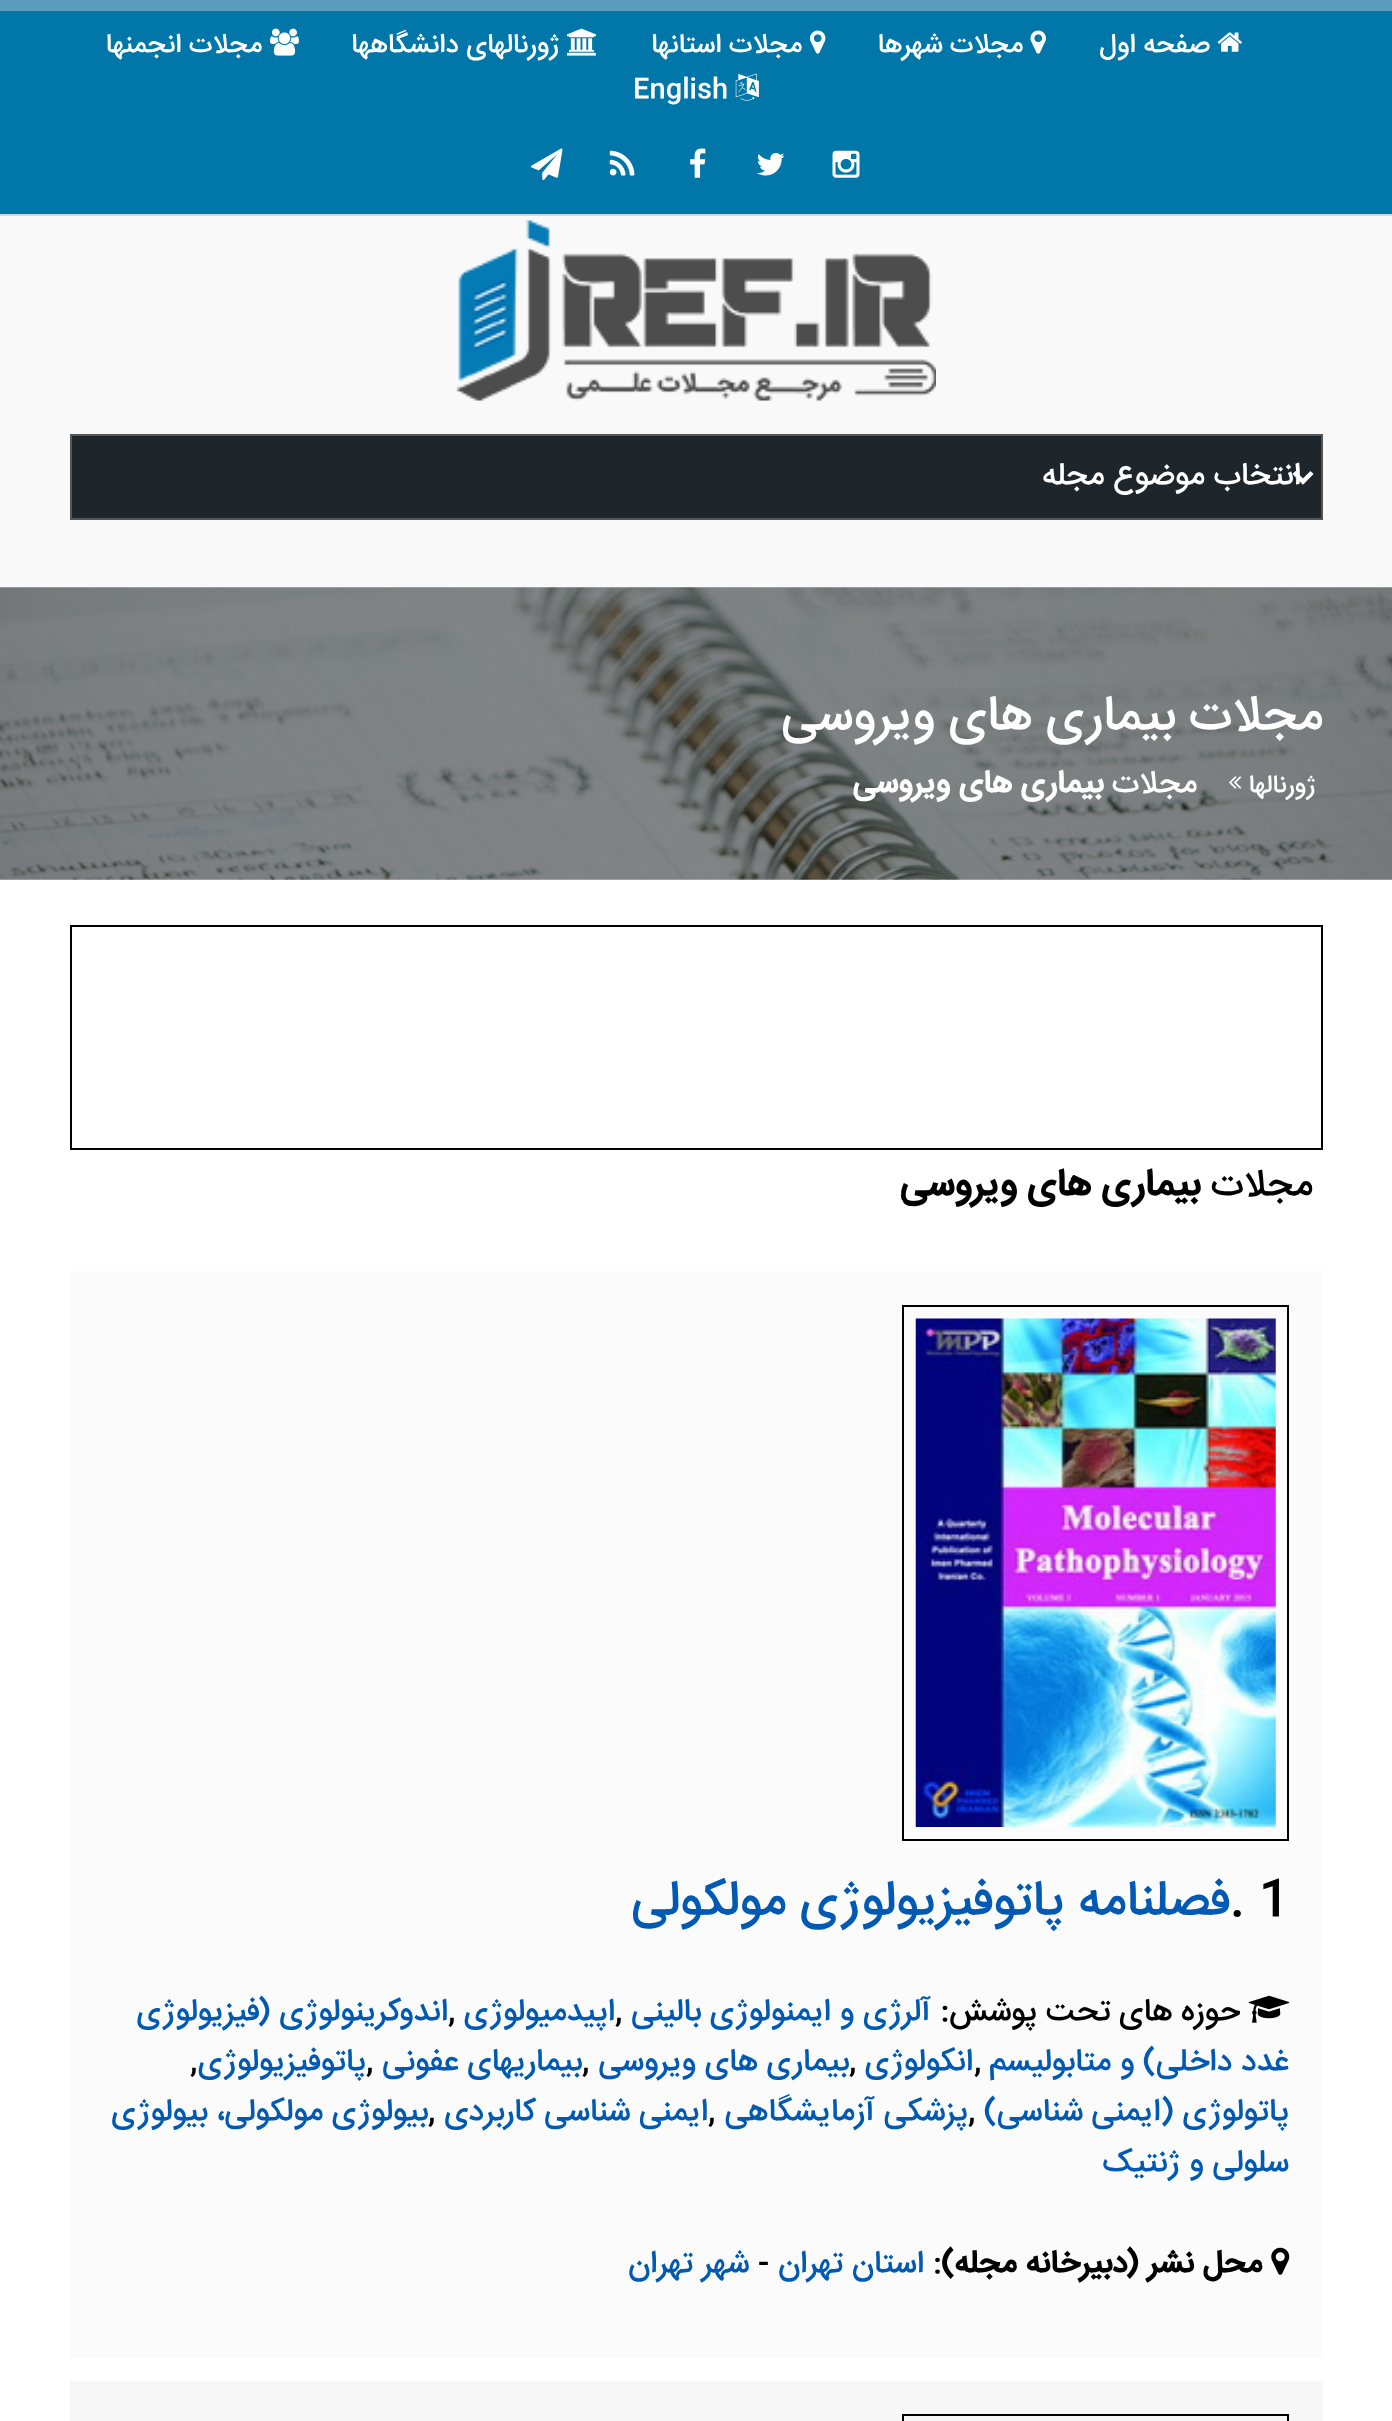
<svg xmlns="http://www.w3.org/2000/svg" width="1392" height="2421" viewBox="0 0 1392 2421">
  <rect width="100%" height="100%" fill="rgb(255,255,255)"/>
  <rect x="0" y="11" width="1392" height="203" fill="rgb(0,118,169)"/>
  <rect x="0" y="0" width="1392" height="11" fill="rgb(91,155,189)"/>
  <image x="1217" y="32" width="25" height="20" href="pic1.png"/>
  <text x="1210" y="52" font-family="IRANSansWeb" font-size="27" font-weight="500" direction="rtl" fill="rgb(255,255,255)">صفحه اول</text>
  <image x="1030" y="30" width="16" height="24" href="pic2.png"/>
  <text x="1023" y="52" font-family="IRANSansWeb" font-size="27" font-weight="500" direction="rtl" fill="rgb(255,255,255)">مجلات شهرها</text>
  <image x="810" y="30" width="16" height="24" href="pic3.png"/>
  <text x="802" y="52" font-family="IRANSansWeb" font-size="27" font-weight="500" direction="rtl" fill="rgb(255,255,255)">مجلات استانها</text>
  <image x="567" y="28" width="29" height="28" href="pic4.png"/>
  <text x="560" y="52" font-family="IRANSansWeb" font-size="27" font-weight="500" direction="rtl" fill="rgb(255,255,255)">ژورنالهای دانشگاهها</text>
  <image x="270" y="28" width="29" height="28" href="pic5.png"/>
  <text x="262" y="52" font-family="IRANSansWeb" font-size="27" font-weight="500" direction="rtl" fill="rgb(255,255,255)">مجلات انجمنها</text>
  <image x="735" y="73" width="24" height="28" href="pic6.png"/>
  <text x="633" y="97" font-family="IRANSansWeb" font-size="27" font-weight="500" fill="rgb(255,255,255)">English</text>
  <image x="832" y="150" width="28" height="28" href="pic7.png"/>
  <image x="757" y="153" width="28" height="23" href="pic8.png"/>
  <image x="690" y="148" width="16" height="30" href="pic9.png"/>
  <image x="609" y="150" width="26" height="26" href="pic10.png"/>
  <image x="531" y="148" width="32" height="32" href="pic11.png"/>
  <rect x="0" y="216" width="1392" height="371" fill="rgb(249,249,249)"/>
  <rect x="0" y="214" width="1392" height="2" fill="rgb(215,215,215)"/>
  <image x="456" y="220" width="480" height="181" href="pic12.png"/>
  <rect x="71" y="435" width="1251" height="84" fill="rgb(30,37,43)" stroke="rgb(83,87,90)" stroke-width="2"/>
  <path d="M1294 472.5L1303 481.5L1312 472.5" fill="none" stroke="rgb(255,255,255)" stroke-width="4.5"/>
  <text x="1301" y="484" font-family="IRANSansWeb" font-size="31.5" font-weight="500" direction="rtl" fill="rgb(255,255,255)">انتخاب موضوع مجله</text>
  <image x="0" y="587" width="1392" height="293" href="pic13.png"/>
  <text x="1323" y="729" font-family="IRANSansWeb" font-size="49.5" font-weight="500" direction="rtl" fill="rgb(255,255,255)">مجلات بیماری های ویروسی</text>
  <text x="1316" y="792" font-family="IRANSansWeb" font-size="25" font-weight="500" direction="rtl" fill="rgb(255,255,255)">ژورنالها</text>
  <image x="1229" y="776" width="13" height="13" href="pic14.png"/>
  <text x="1197" y="792" font-family="IRANSansWeb" font-size="31.5" font-weight="500" direction="rtl" fill="rgb(255,255,255)">مجلات</text>
  <text x="1103" y="792" font-family="IRANSansWeb" font-size="31.5" font-weight="bold" direction="rtl" fill="rgb(255,255,255)">بیماری های ویروسی</text>
  <rect x="71" y="926" width="1251" height="223" fill="none" stroke="rgb(0,0,0)" stroke-width="2"/>
  <text x="1313" y="1195" font-family="IRANSansWeb" font-size="37.75" font-weight="500" direction="rtl" fill="rgb(0,0,0)">مجلات</text>
  <text x="1200" y="1195" font-family="IRANSansWeb" font-size="37.75" font-weight="bold" direction="rtl" fill="rgb(0,0,0)">بیماری های ویروسی</text>
  <rect x="70" y="1271" width="1253" height="1087" fill="rgb(251,251,251)"/>
  <rect x="903" y="1306" width="385" height="534" fill="none" stroke="rgb(0,0,0)" stroke-width="2"/>
  <image x="915" y="1318" width="361" height="509" href="pic15.png"/>
  <text x="1230" y="1914" font-family="IRANSansWeb" font-size="49.5" font-weight="500" fill="rgb(0,0,0)">. 1</text>
  <text x="1230" y="1914" font-family="IRANSansWeb" font-size="49.5" font-weight="500" direction="rtl" fill="rgb(0,89,179)">فصلنامه پاتوفیزیولوژی مولکولی</text>
  <image x="1248" y="1995" width="42" height="28" href="pic16.png"/>
  <text x="1240" y="2020" font-family="IRANSansWeb" font-size="31.5" font-weight="500" direction="rtl" fill="rgb(0,0,0)">حوزه های تحت پوشش:</text>
  <text x="931" y="2020" font-family="IRANSansWeb" font-size="31.5" font-weight="500" direction="rtl" fill="rgb(0,89,179)">آلرژی و ایمنولوژی بالینی</text>
  <text x="615" y="2020" font-family="IRANSansWeb" font-size="31.5" font-weight="500" fill="rgb(0,0,0)">,</text>
  <text x="615" y="2020" font-family="IRANSansWeb" font-size="31.5" font-weight="500" direction="rtl" fill="rgb(0,89,179)">اپیدمیولوژی</text>
  <text x="448" y="2020" font-family="IRANSansWeb" font-size="31.5" font-weight="500" fill="rgb(0,0,0)">,</text>
  <g font-family="IRANSansWeb" font-size="31.5" font-weight="500" direction="rtl" fill="rgb(0,89,179)">
    <text x="448" y="2020">اندوکرینولوژی (فیزیولوژی</text>
    <text x="1289" y="2070">غدد داخلی) و متابولیسم</text>
  </g>
  <text x="974" y="2070" font-family="IRANSansWeb" font-size="31.5" font-weight="500" fill="rgb(0,0,0)">,</text>
  <text x="973" y="2070" font-family="IRANSansWeb" font-size="31.5" font-weight="500" direction="rtl" fill="rgb(0,89,179)">انکولوژی</text>
  <text x="849" y="2070" font-family="IRANSansWeb" font-size="31.5" font-weight="500" fill="rgb(0,0,0)">,</text>
  <text x="849" y="2070" font-family="IRANSansWeb" font-size="31.5" font-weight="500" direction="rtl" fill="rgb(0,89,179)">بیماری های ویروسی</text>
  <text x="582" y="2070" font-family="IRANSansWeb" font-size="31.5" font-weight="500" fill="rgb(0,0,0)">,</text>
  <text x="582" y="2070" font-family="IRANSansWeb" font-size="31.5" font-weight="500" direction="rtl" fill="rgb(0,89,179)">بیماریهای عفونی</text>
  <text x="366" y="2070" font-family="IRANSansWeb" font-size="31.5" font-weight="500" fill="rgb(0,0,0)">,</text>
  <text x="366" y="2070" font-family="IRANSansWeb" font-size="31.5" font-weight="500" direction="rtl" fill="rgb(0,89,179)">پاتوفیزیولوژی</text>
  <text x="190" y="2070" font-family="IRANSansWeb" font-size="31.5" font-weight="500" fill="rgb(0,0,0)">,</text>
  <text x="1289" y="2120" font-family="IRANSansWeb" font-size="31.5" font-weight="500" direction="rtl" fill="rgb(0,89,179)">پاتولوژی (ایمنی شناسی)</text>
  <text x="968" y="2120" font-family="IRANSansWeb" font-size="31.5" font-weight="500" fill="rgb(0,0,0)">,</text>
  <text x="968" y="2120" font-family="IRANSansWeb" font-size="31.5" font-weight="500" direction="rtl" fill="rgb(0,89,179)">پزشکی آزمایشگاهی</text>
  <text x="708" y="2120" font-family="IRANSansWeb" font-size="31.5" font-weight="500" fill="rgb(0,0,0)">,</text>
  <text x="708" y="2120" font-family="IRANSansWeb" font-size="31.5" font-weight="500" direction="rtl" fill="rgb(0,89,179)">ایمنی شناسی کاربردی</text>
  <text x="428" y="2120" font-family="IRANSansWeb" font-size="31.5" font-weight="500" fill="rgb(0,0,0)">,</text>
  <g font-family="IRANSansWeb" font-size="31.5" font-weight="500" direction="rtl" fill="rgb(0,89,179)">
    <text x="428" y="2120">بیولوژی مولکولی، بیولوژی</text>
    <text x="1289" y="2171">سلولی و ژنتیک</text>
  </g>
  <image x="1271" y="2247" width="19" height="28" href="pic17.png"/>
  <text x="1262" y="2272" font-family="IRANSansWeb" font-size="31.5" font-weight="bold" direction="rtl" fill="rgb(0,0,0)">محل نشر (دبیرخانه مجله)</text>
  <text x="933" y="2272" font-family="IRANSansWeb" font-size="31.5" font-weight="500" fill="rgb(0,0,0)">:</text>
  <text x="924" y="2272" font-family="IRANSansWeb" font-size="31.5" font-weight="500" direction="rtl" fill="rgb(0,89,179)">استان تهران</text>
  <text x="758" y="2272" font-family="IRANSansWeb" font-size="31.5" font-weight="500" fill="rgb(0,0,0)">-</text>
  <text x="749" y="2272" font-family="IRANSansWeb" font-size="31.5" font-weight="500" direction="rtl" fill="rgb(0,89,179)">شهر تهران</text>
  <rect x="70" y="2381" width="1253" height="40" fill="rgb(247,247,247)"/>
  <rect x="903" y="2415" width="385" height="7" fill="none" stroke="rgb(0,0,0)" stroke-width="2"/>
</svg>
